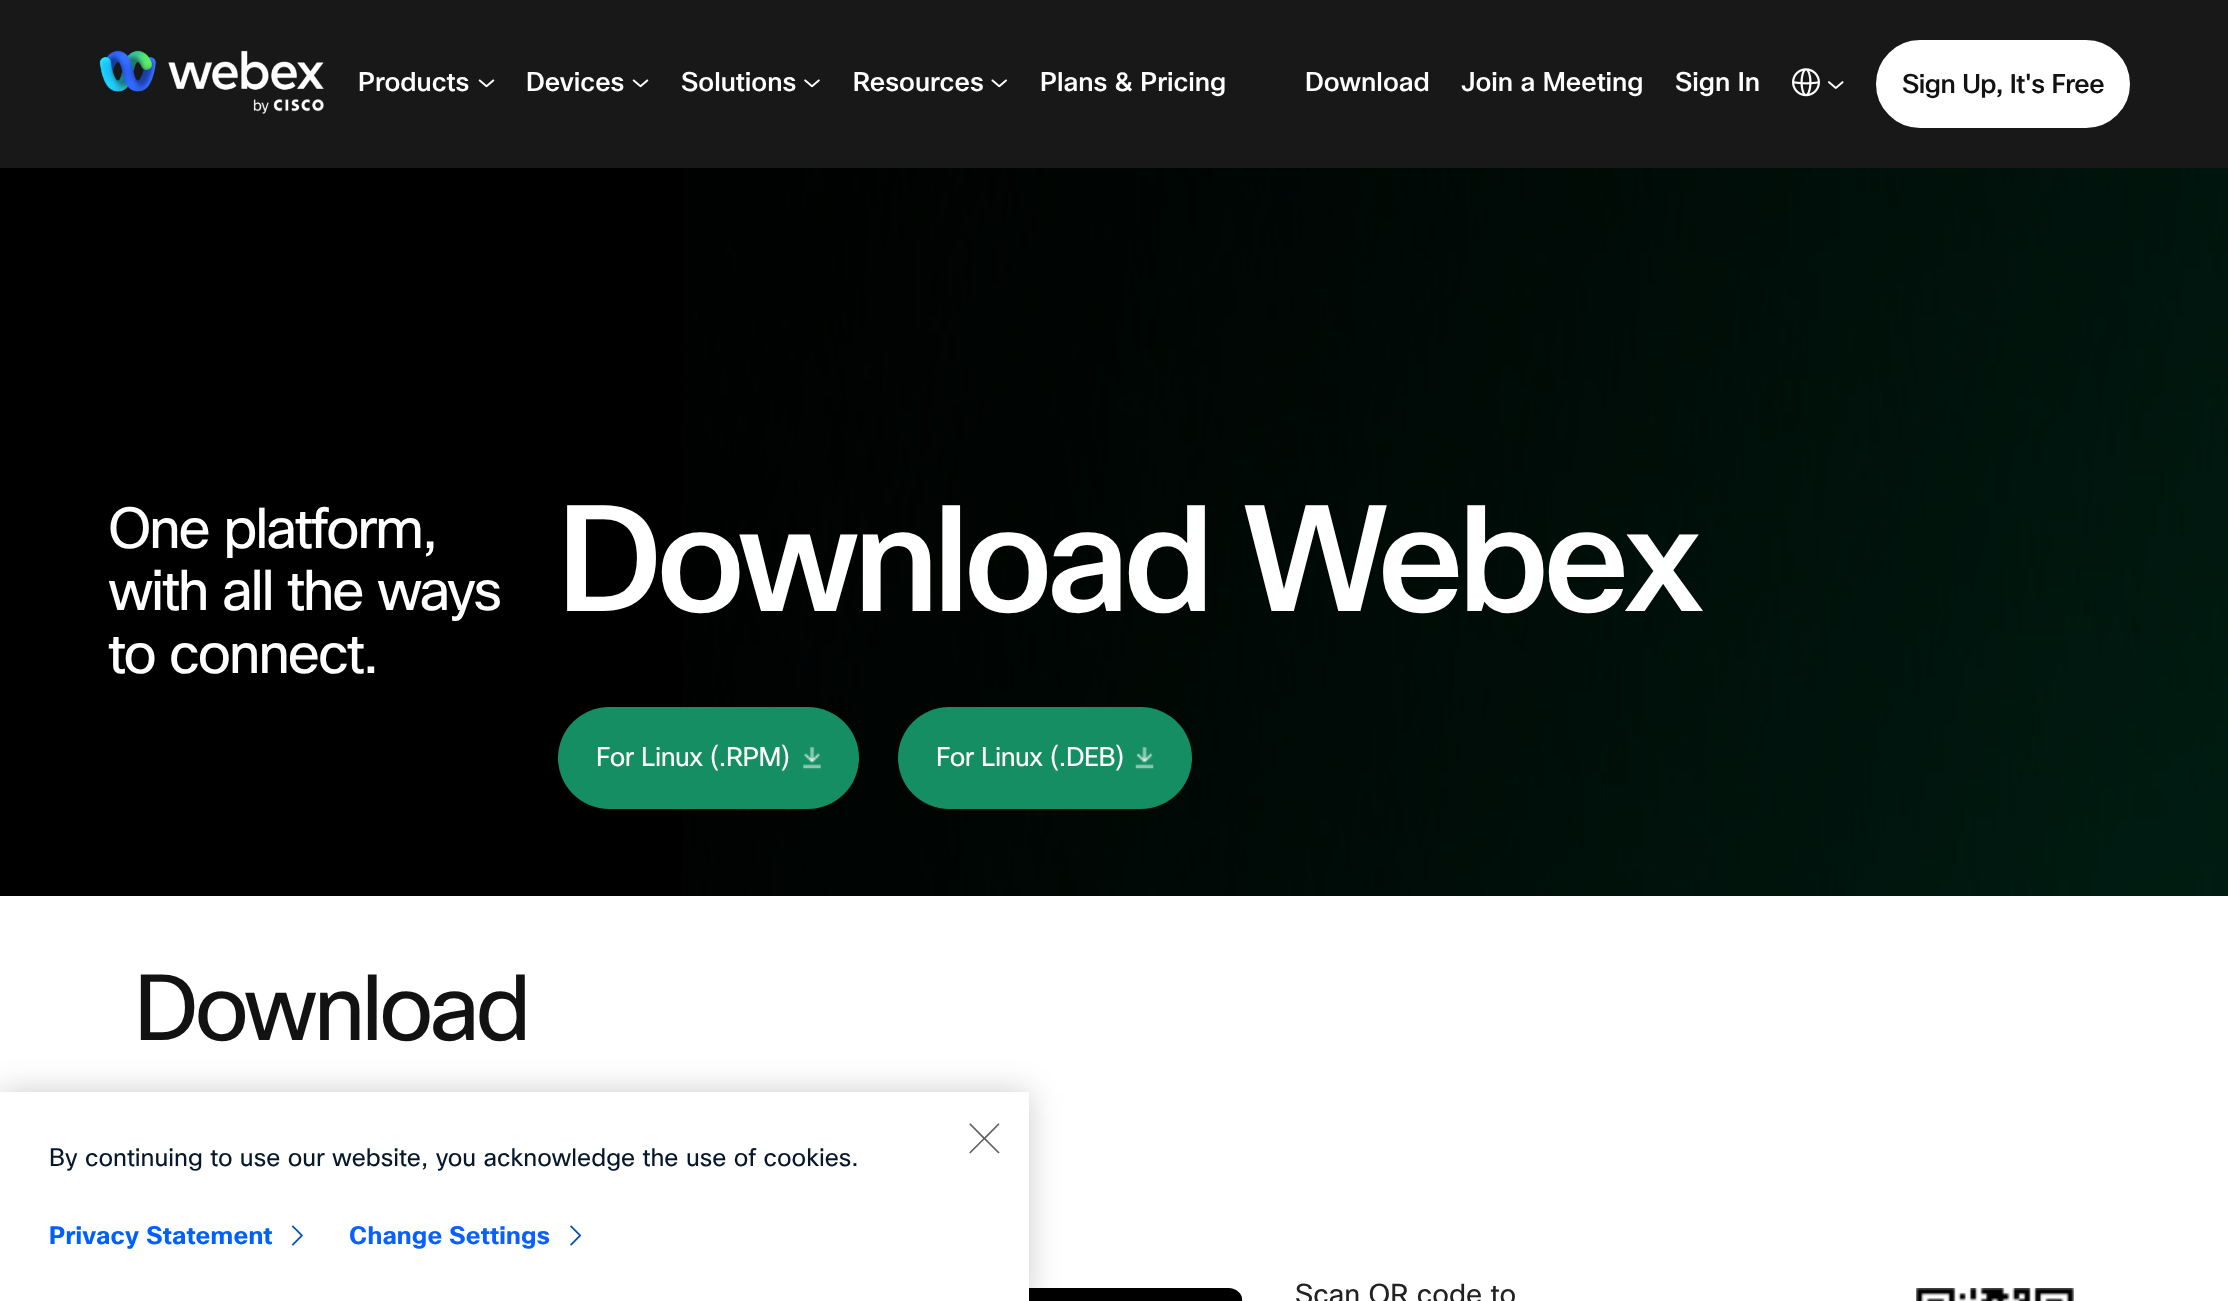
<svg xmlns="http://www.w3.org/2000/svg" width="2228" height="1301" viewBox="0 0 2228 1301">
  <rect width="100%" height="100%" fill="rgb(0,0,0)"/>
  <rect x="0" y="0" width="2228" height="168" fill="rgb(24,24,24)"/>
  <image x="99" y="50" width="225" height="64" href="pic1.png"/>
  <text x="358" y="91" font-family="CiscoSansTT" font-size="26.25" font-weight="500" fill="rgb(255,255,255)">Products</text>
  <image x="478" y="79" width="17" height="9" href="pic2.png"/>
  <text x="526" y="91" font-family="CiscoSansTT" font-size="26.25" font-weight="500" fill="rgb(255,255,255)">Devices</text>
  <image x="632" y="79" width="17" height="9" href="pic2.png"/>
  <text x="681" y="91" font-family="CiscoSansTT" font-size="26.25" font-weight="500" fill="rgb(255,255,255)">Solutions</text>
  <image x="804" y="79" width="16" height="9" href="pic3.png"/>
  <text x="853" y="91" font-family="CiscoSansTT" font-size="26.25" font-weight="500" fill="rgb(255,255,255)">Resources</text>
  <image x="991" y="79" width="16" height="9" href="pic4.png"/>
  <g font-family="CiscoSansTT" font-size="26.25" font-weight="500" fill="rgb(255,255,255)">
    <text x="1040" y="91">Plans &amp; Pricing</text>
    <text x="1305" y="91">Download</text>
    <text x="1461" y="91">Join a Meeting</text>
    <text x="1675" y="91">Sign In</text>
  </g>
  <image x="1792" y="68" width="28" height="29" href="pic5.png"/>
  <image x="1828" y="81" width="16" height="8" href="pic6.png"/>
  <rect x="1877" y="41" width="252" height="86" rx="43" fill="rgb(255,255,255)" stroke="rgb(255,255,255)" stroke-width="2"/>
  <text x="1902" y="93" font-family="CiscoSansTT" font-size="26.25" font-weight="500" letter-spacing="-0.5" fill="rgb(18,18,18)">Sign Up, It's Free</text>
  <image x="682" y="168" width="1546" height="728" href="pic7.png"/>
  <g font-family="CiscoSansTT" font-size="56" letter-spacing="-2.25" fill="rgb(255,255,255)">
    <text>
      <tspan x="108" y="548">One platform,</tspan>
      <tspan x="108" y="610">with all the ways</tspan>
      <tspan x="108" y="673">to connect.</tspan>
    </text>
  </g>
  <text x="557" y="611" font-family="CiscoSansTT" font-size="147" font-weight="500" letter-spacing="-5.9" fill="rgb(255,255,255)">Download Webex</text>
  <rect x="558" y="707" width="301" height="102" rx="51" fill="rgb(20,142,98)"/>
  <text x="596" y="766" font-family="CiscoSansTT" font-size="26.25" letter-spacing="-0.5" fill="rgb(255,255,255)">For Linux (.RPM)</text>
  <image x="803" y="747" width="18" height="22" href="pic8.png"/>
  <rect x="898" y="707" width="294" height="102" rx="51" fill="rgb(20,142,98)"/>
  <text x="936" y="766" font-family="CiscoSansTT" font-size="26.25" letter-spacing="-0.5" fill="rgb(255,255,255)">For Linux (.DEB)</text>
  <image x="1135" y="747" width="19" height="22" href="pic9.png"/>
  <rect x="0" y="896" width="2228" height="405" fill="rgb(255,255,255)"/>
  <text x="134" y="1040" font-family="CiscoSansTT" font-size="91" letter-spacing="-3.75" fill="rgb(18,18,18)">Download</text>
  <image x="1029" y="1288" width="214" height="13" href="pic10.png"/>
  <text x="1295" y="1304" font-family="CiscoSansTT" font-size="28" fill="rgb(34,34,34)">Scan QR code to</text>
  <image x="1916" y="1288" width="158" height="13" href="pic11.png"/>
  <rect x="0" y="1092" width="1029" height="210" fill="rgba(0,0,0,0.2)" filter="blur(16px)"/>
  <rect x="0" y="1092" width="1029" height="209" fill="rgb(255,255,255)"/>
  <image x="969" y="1123" width="31" height="31" href="pic12.png"/>
  <text x="49" y="1166" font-family="CiscoSansTT" font-size="24.5" fill="rgb(7,24,45)">By continuing to use our website, you acknowledge the use of cookies.</text>
  <text x="49" y="1244" font-family="CiscoSansTT" font-size="24.5" font-weight="bold" letter-spacing="0.25" fill="rgb(0,96,255)">Privacy Statement</text>
  <image x="291" y="1225" width="12" height="21" href="pic13.png"/>
  <text x="349" y="1244" font-family="CiscoSansTT" font-size="24.5" font-weight="bold" letter-spacing="0.25" fill="rgb(10,96,255)">Change Settings</text>
  <image x="570" y="1225" width="11" height="21" href="pic14.png"/>
</svg>
